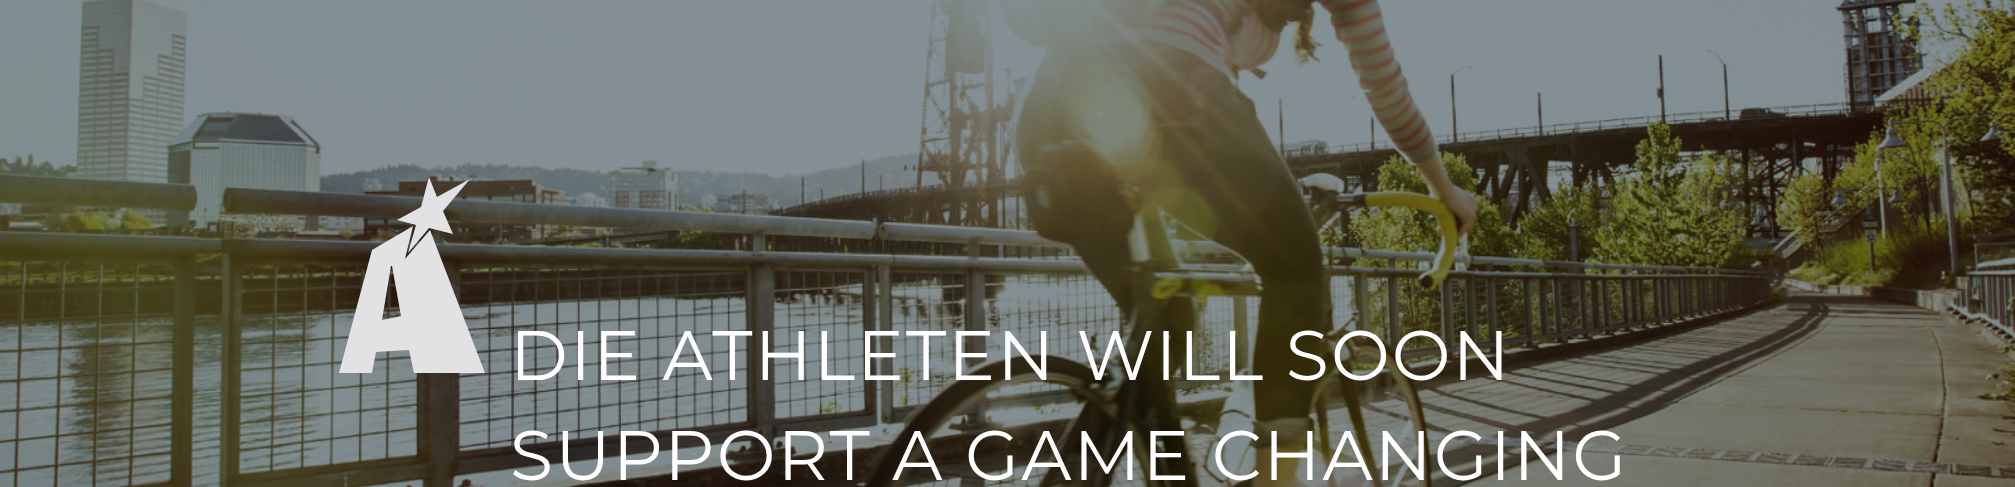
<svg xmlns="http://www.w3.org/2000/svg" width="2015" height="487" viewBox="0 0 2015 487">
  <rect width="100%" height="100%" fill="rgb(255,255,255)"/>
  <image x="0" y="0" width="2015" height="487" href="pic1.png"/>
  <path d="M429 177L421 207L397 220L416 225L408 253L429 228L453 234L443 211L470 179L437 197Z" fill="rgb(226,226,228)"/>
  <path d="M382 320L391 266H392L401 316ZM339 373L372 250L413 226L405 259L430 230L485 373H414L409 350L376 352L372 373Z" fill="rgb(226,226,228)" fill-rule="evenodd"/>
  <g font-family="Montserrat" font-size="70" letter-spacing="2.1" fill="rgb(255,255,255)">
    <text>
      <tspan x="510" y="380">DIE ATHLETEN WILL SOON</tspan>
      <tspan x="510" y="480">SUPPORT A GAME CHANGING</tspan>
    </text>
  </g>
</svg>
